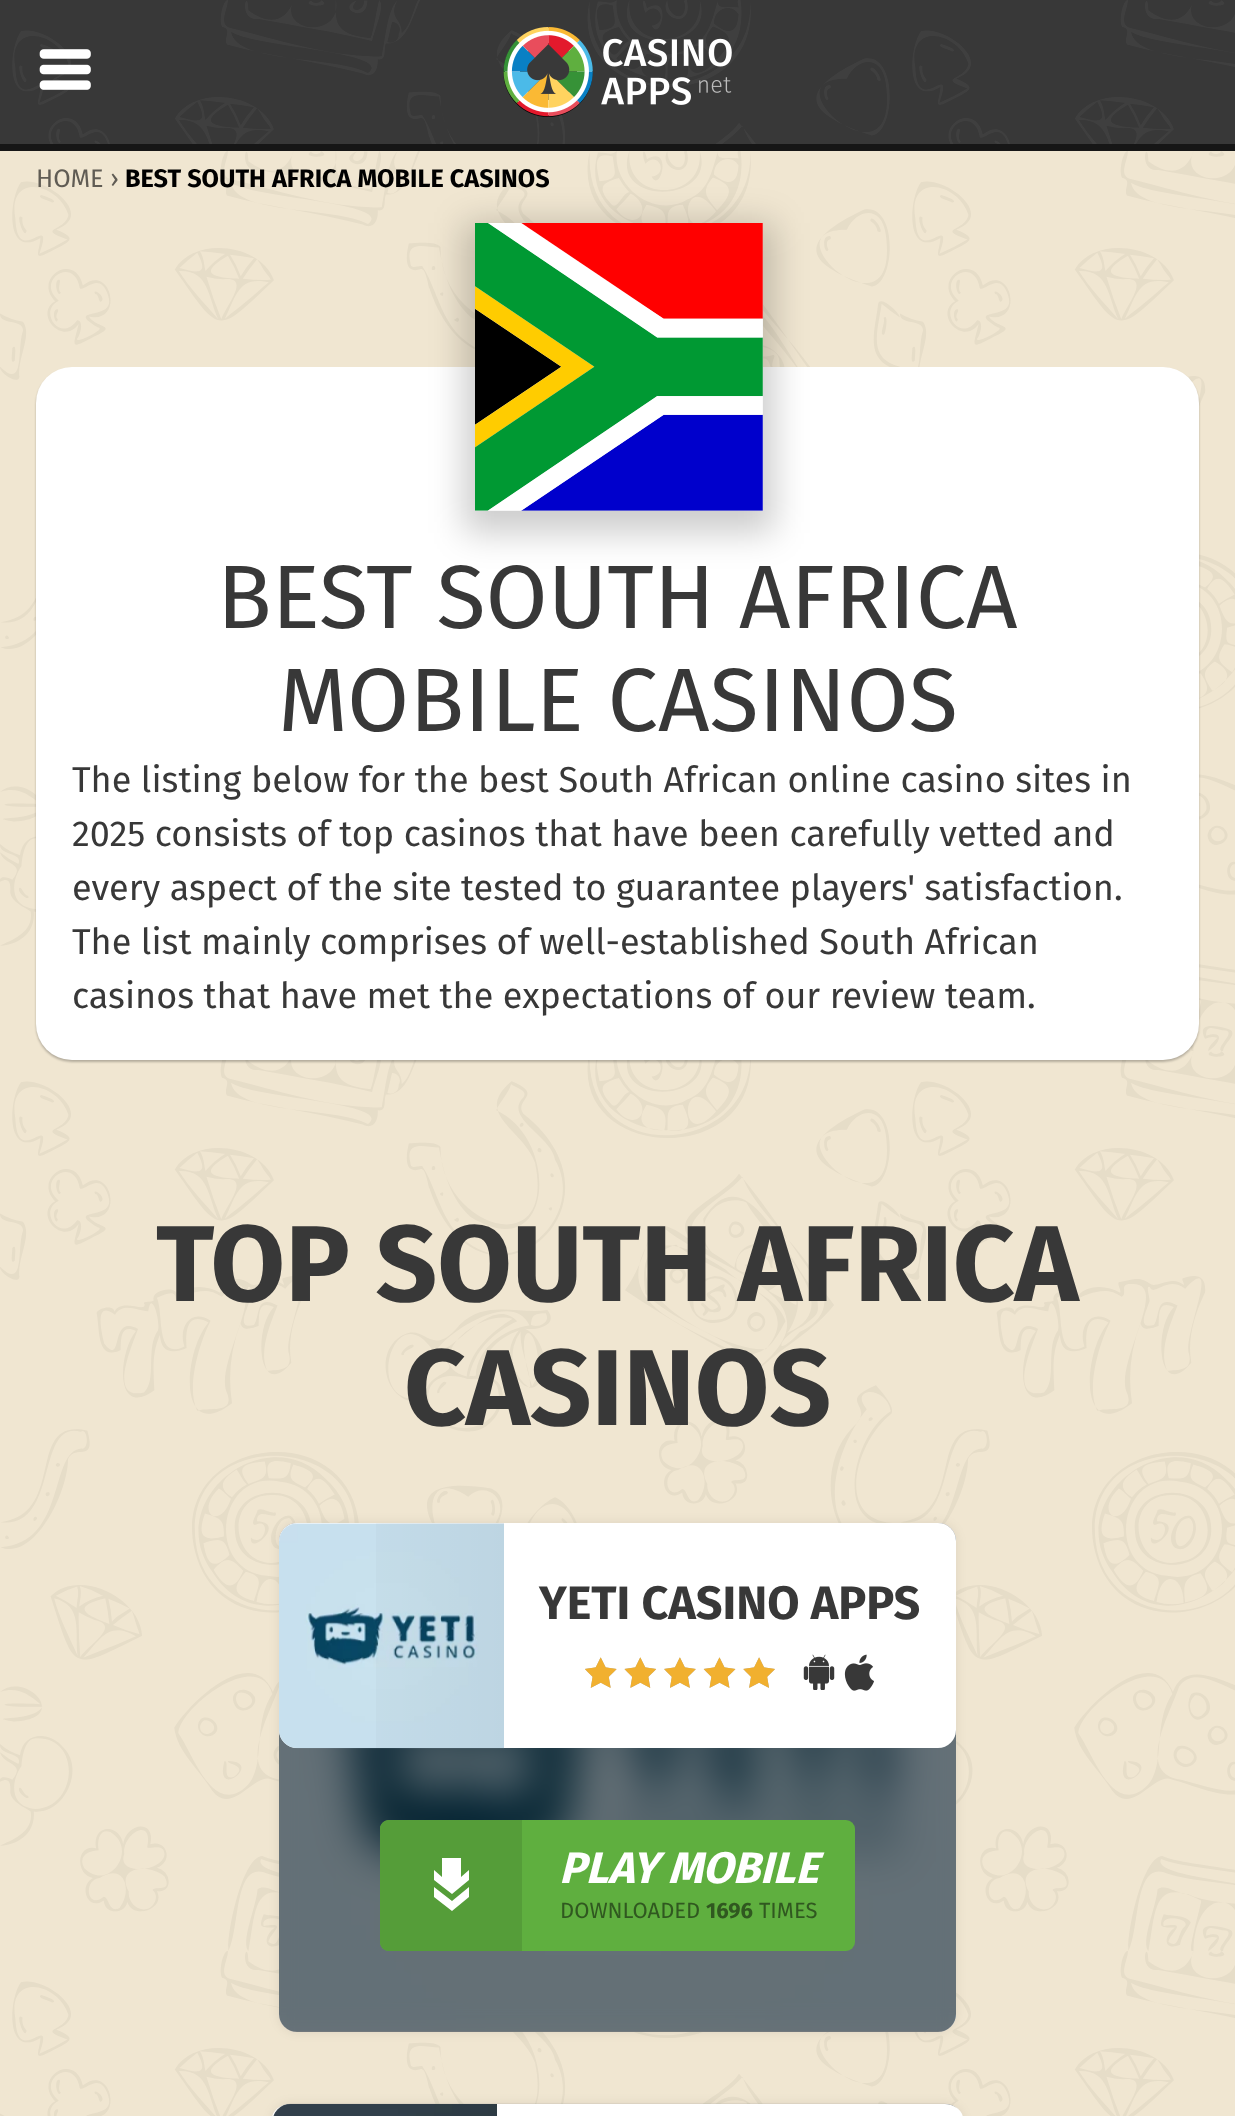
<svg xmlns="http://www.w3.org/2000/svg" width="1235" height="2116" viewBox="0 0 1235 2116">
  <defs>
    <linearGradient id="g1" gradientUnits="userSpaceOnUse" x1="504" y1="1636" x2="279" y2="1636"><stop offset="0" stop-color="rgb(0,0,0)" stop-opacity="0.05"/><stop offset="1" stop-color="rgb(0,0,0)" stop-opacity="0"/></linearGradient>
    <linearGradient id="g2" gradientUnits="userSpaceOnUse" x1="497" y1="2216" x2="272" y2="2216"><stop offset="0" stop-color="rgb(0,0,0)" stop-opacity="0.05"/><stop offset="1" stop-color="rgb(0,0,0)" stop-opacity="0"/></linearGradient>
  </defs>
  <rect width="100%" height="100%" fill="rgb(56,56,56)"/>
  <rect x="0" y="144" width="1235" height="7" fill="rgb(22,22,22)"/>
  <image x="12" y="0" width="1223" height="144" href="pic1.png"/>
  <image x="39" y="49" width="52" height="41" href="pic2.png"/>
  <image x="503" y="27" width="229" height="90" href="pic3.png"/>
  <rect x="0" y="151" width="1235" height="1965" fill="rgb(240,230,209)"/>
  <image x="0" y="151" width="1235" height="1965" href="pic4.png"/>
  <text x="36" y="187" font-family="Fira Sans" font-size="25.25" fill="rgb(96,92,84)">HOME ›</text>
  <text x="125" y="187" font-family="Fira Sans" font-size="25.25" font-weight="bold" fill="rgb(0,0,0)">BEST SOUTH AFRICA MOBILE CASINOS</text>
  <rect x="36" y="369" width="1163" height="693" rx="36" fill="rgba(0,0,0,0.25)" filter="blur(1px)"/>
  <rect x="36" y="367" width="1163" height="693" rx="36" fill="rgb(255,255,255)"/>
  <rect x="464" y="223" width="310" height="310" fill="rgba(0,0,0,0.2)" filter="blur(17px)"/>
  <rect x="475" y="223" width="288" height="288" fill="rgb(232,232,232)"/>
  <image x="475" y="223" width="288" height="288" href="pic5.png"/>
  <g font-family="Fira Sans" font-size="90" fill="rgb(56,56,56)">
    <text x="217" y="628">BEST SOUTH AFRICA</text>
    <text x="278" y="731">MOBILE CASINOS</text>
  </g>
  <g font-family="Fira Sans" font-size="36" fill="rgb(56,56,56)">
    <text>
      <tspan x="72" y="792">The listing below for the best South African online casino sites in</tspan>
      <tspan x="72" y="846">2025 consists of top casinos that have been carefully vetted and</tspan>
      <tspan x="72" y="900">every aspect of the site tested to guarantee players' satisfaction.</tspan>
      <tspan x="72" y="954">The list mainly comprises of well-established South African</tspan>
      <tspan x="72" y="1008">casinos that have met the expectations of our review team.</tspan>
    </text>
  </g>
  <g font-family="Fira Sans" font-size="108" font-weight="bold" fill="rgb(56,56,56)">
    <text x="156" y="1301">TOP SOUTH AFRICA</text>
    <text x="404" y="1425">CASINOS</text>
  </g>
  <rect x="279" y="1523" width="677" height="509" rx="18" fill="rgba(0,0,0,0.08)" filter="blur(5.5px)"/>
  <rect x="279" y="1523" width="677" height="509" rx="18" fill="rgb(255,255,255)"/>
  <image x="279" y="1523" width="677" height="509" href="pic6.png"/>
  <rect x="279" y="1523" width="677" height="509" rx="18" fill="rgba(0,0,0,0.5)"/>
  <rect x="279" y="1523" width="677" height="225" rx="18" fill="rgb(255,255,255)"/>
  <image x="279" y="1523" width="225" height="226" href="pic7.png"/>
  <rect x="376" y="1523" width="128" height="225" fill="url(#g1)"/>
  <text x="539" y="1619" font-family="Fira Sans" font-size="46.75" font-weight="bold" fill="rgb(56,56,56)">YETI CASINO APPS</text>
  <image x="585" y="1657" width="190" height="31" href="pic8.png"/>
  <image x="585" y="1657" width="190" height="31" href="pic9.png"/>
  <image x="803" y="1654" width="32" height="36" href="pic10.png"/>
  <image x="844" y="1654" width="30" height="37" href="pic11.png"/>
  <rect x="380" y="1820" width="475" height="131" rx="9" fill="rgb(95,175,63)"/>
  <path d="M389 1820H522V1951H389C384 1951 380 1947 380 1942V1829C380 1824 384 1820 389 1820Z" fill="rgb(85,157,57)"/>
  <path d="M434 1887V1897L452 1911L469 1897V1887L452 1901ZM461 1877V1858H442V1877L434 1870V1880L452 1894L469 1880V1870Z" fill="rgb(255,255,255)" fill-rule="evenodd"/>
  <text x="559" y="1883" font-family="Fira Sans" font-size="44" font-weight="bold" font-style="italic" fill="rgb(255,255,255)">PLAY MOBILE</text>
  <text x="560" y="1918" font-family="Fira Sans" font-size="22" fill="rgb(48,88,32)">DOWNLOADED</text>
  <text x="706" y="1918" font-family="Fira Sans" font-size="22" font-weight="bold" fill="rgb(48,88,32)">1696</text>
  <text x="759" y="1918" font-family="Fira Sans" font-size="22" fill="rgb(48,88,32)">TIMES</text>
  <rect x="272" y="2104" width="691" height="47" rx="18" fill="rgba(0,0,0,0.08)" filter="blur(5.5px)"/>
  <image x="273" y="2103" width="689" height="13" href="pic12.png"/>
  <rect x="272" y="2104" width="691" height="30" rx="18" fill="rgb(255,255,255)"/>
  <image x="273" y="2104" width="224" height="12" href="pic13.png"/>
  <rect x="440" y="2104" width="57" height="12" fill="url(#g2)"/>
</svg>
